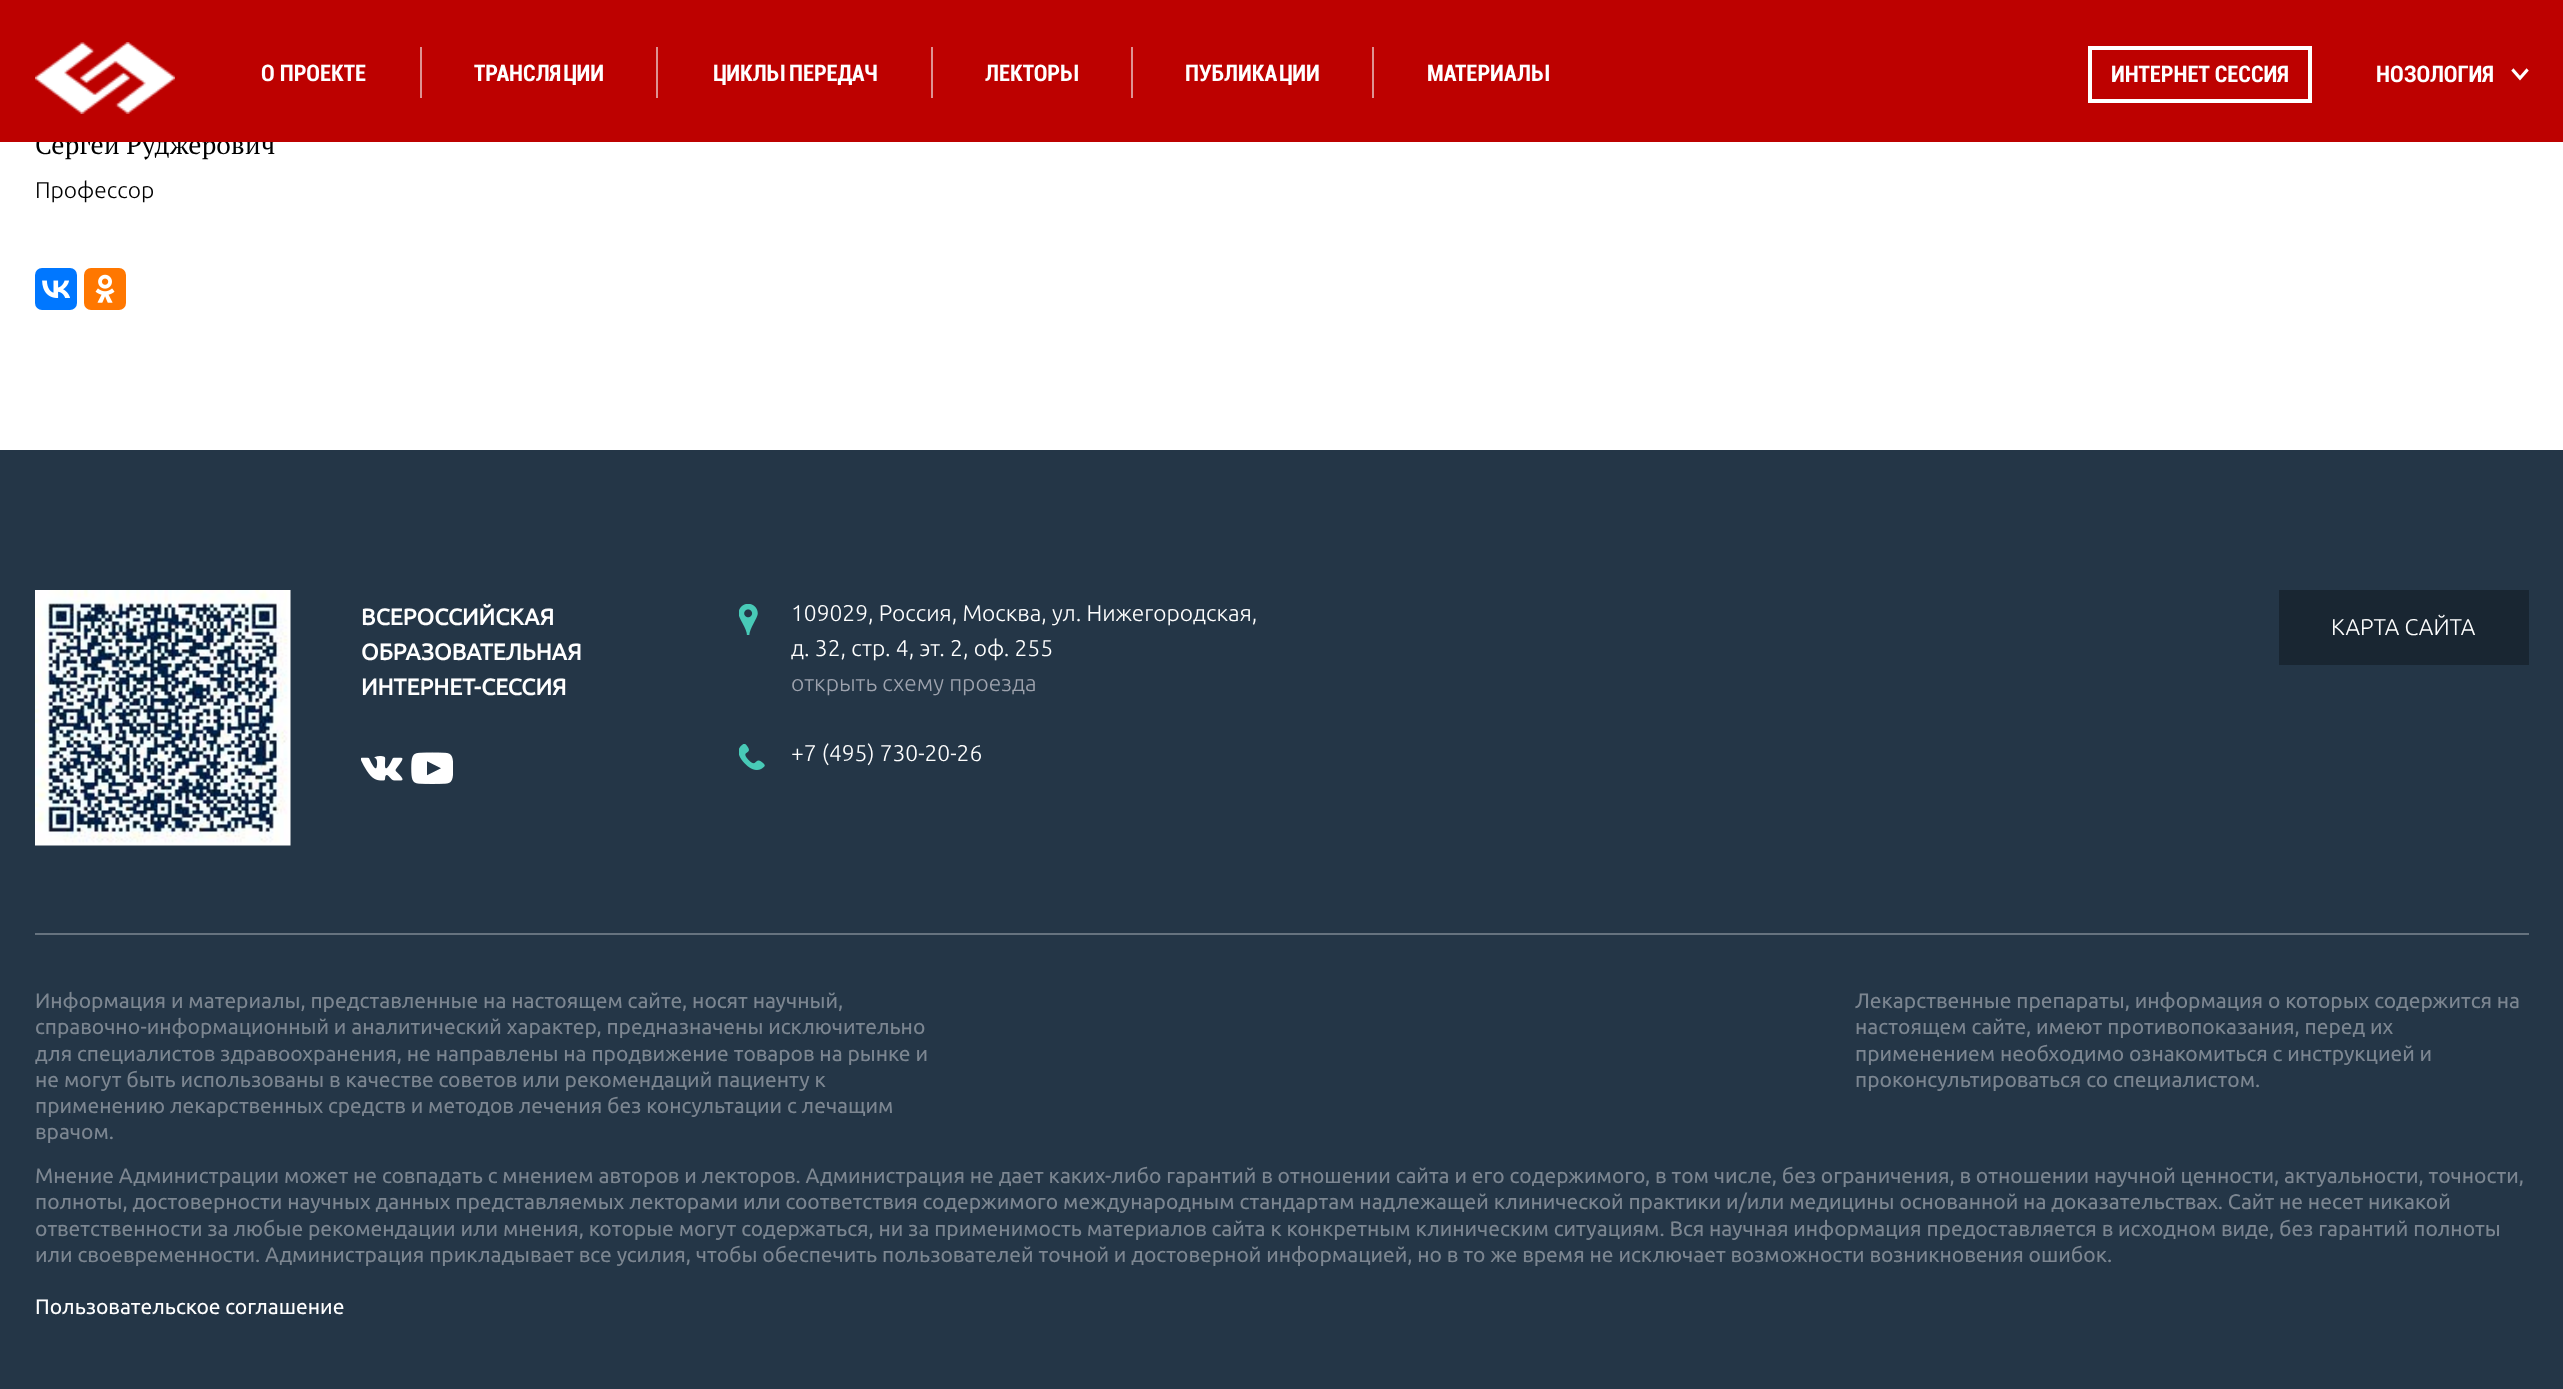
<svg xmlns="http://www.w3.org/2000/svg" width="2563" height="1389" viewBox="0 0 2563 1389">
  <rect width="100%" height="100%" fill="rgb(255,255,255)"/>
  <text x="35" y="154" font-family="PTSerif" font-size="26.25" fill="rgb(0,0,0)">Сергей Руджерович</text>
  <rect x="0" y="0" width="2563" height="142" fill="rgb(189,1,0)"/>
  <image x="35" y="42" width="140" height="72" href="pic1.png"/>
  <text x="261" y="81" font-family="Roboto" font-size="22.75" font-weight="bold" fill="rgb(255,255,255)">О ПРОЕКТЕ</text>
  <rect x="420" y="47" width="2" height="51" fill="rgb(222,147,146)"/>
  <text x="474" y="81" font-family="Roboto" font-size="22.75" font-weight="bold" fill="rgb(255,255,255)">ТРАНСЛЯЦИИ</text>
  <rect x="656" y="47" width="2" height="51" fill="rgb(222,147,146)"/>
  <text x="711" y="81" font-family="Roboto" font-size="22.75" font-weight="bold" fill="rgb(255,255,255)">ЦИКЛЫ ПЕРЕДАЧ</text>
  <rect x="931" y="47" width="2" height="51" fill="rgb(222,147,146)"/>
  <text x="985" y="81" font-family="Roboto" font-size="22.75" font-weight="bold" fill="rgb(255,255,255)">ЛЕКТОРЫ</text>
  <rect x="1131" y="47" width="2" height="51" fill="rgb(222,147,146)"/>
  <text x="1185" y="81" font-family="Roboto" font-size="22.75" font-weight="bold" fill="rgb(255,255,255)">ПУБЛИКАЦИИ</text>
  <rect x="1372" y="47" width="2" height="51" fill="rgb(222,147,146)"/>
  <text x="1427" y="81" font-family="Roboto" font-size="22.75" font-weight="bold" fill="rgb(255,255,255)">МАТЕРИАЛЫ</text>
  <rect x="2090" y="48" width="220" height="53" fill="none" stroke="rgb(255,255,255)" stroke-width="4"/>
  <g font-family="Roboto" font-size="22.75" font-weight="bold" fill="rgb(255,255,255)">
    <text x="2111" y="82">ИНТЕРНЕТ СЕССИЯ</text>
    <text x="2376" y="82">НОЗОЛОГИЯ</text>
  </g>
  <image x="2511" y="68" width="18" height="13" href="pic2.png"/>
  <text x="35" y="198" font-family="Ubuntu" font-size="22.75" font-weight="300" fill="rgb(0,0,0)">Профессор</text>
  <rect x="35" y="268" width="42" height="42" rx="7" fill="rgb(0,119,255)"/>
  <image x="42" y="280" width="28" height="18" href="pic3.png"/>
  <rect x="84" y="268" width="42" height="42" rx="7" fill="rgb(255,119,0)"/>
  <image x="95" y="274" width="20" height="29" href="pic4.png"/>
  <rect x="0" y="450" width="2563" height="939" fill="rgb(36,54,71)"/>
  <rect x="35" y="933" width="2494" height="2" fill="rgb(102,115,127)"/>
  <image x="35" y="590" width="256" height="256" href="pic5.png"/>
  <g font-family="Ubuntu" font-size="22.75" font-weight="bold" fill="rgb(255,255,255)">
    <text>
      <tspan x="361" y="625">ВСЕРОССИЙСКАЯ</tspan>
      <tspan x="361" y="660">ОБРАЗОВАТЕЛЬНАЯ</tspan>
      <tspan x="361" y="695">ИНТЕРНЕТ-СЕССИЯ</tspan>
    </text>
  </g>
  <image x="361" y="756" width="42" height="25" href="pic6.png"/>
  <image x="411" y="752" width="42" height="32" href="pic7.png"/>
  <image x="739" y="604" width="19" height="31" href="pic8.png"/>
  <g font-family="Ubuntu" font-size="22.75" font-weight="300" fill="rgb(255,255,255)">
    <text>
      <tspan x="791" y="621">109029, Россия, Москва, ул. Нижегородская,</tspan>
      <tspan x="791" y="656">д. 32, стр. 4, эт. 2, оф. 255</tspan>
    </text>
  </g>
  <text x="791" y="691" font-family="Ubuntu" font-size="22.75" font-weight="300" fill="rgb(158,163,174)">открыть схему проезда</text>
  <image x="739" y="744" width="26" height="26" href="pic9.png"/>
  <text x="791" y="761" font-family="Ubuntu" font-size="22.75" font-weight="300" fill="rgb(255,255,255)">+7 (495) 730-20-26</text>
  <rect x="2279" y="590" width="250" height="75" fill="rgb(25,38,50)"/>
  <text x="2331" y="635" font-family="Ubuntu" font-size="22.75" font-weight="300" fill="rgb(255,255,255)">КАРТА САЙТА</text>
  <g font-family="Ubuntu" font-size="21" fill="rgb(124,134,145)">
    <text>
      <tspan x="35" y="1008">Информация и материалы, представленные на настоящем сайте, носят научный,</tspan>
      <tspan x="35" y="1034">справочно-информационный и аналитический характер, предназначены исключительно</tspan>
      <tspan x="35" y="1061">для специалистов здравоохранения, не направлены на продвижение товаров на рынке и</tspan>
      <tspan x="35" y="1087">не могут быть использованы в качестве советов или рекомендаций пациенту к</tspan>
      <tspan x="35" y="1113">применению лекарственных средств и методов лечения без консультации с лечащим</tspan>
      <tspan x="35" y="1139">врачом.</tspan>
    </text>
    <text>
      <tspan x="1855" y="1008">Лекарственные препараты, информация о которых содержится на</tspan>
      <tspan x="1855" y="1034">настоящем сайте, имеют противопоказания, перед их</tspan>
      <tspan x="1855" y="1061">применением необходимо ознакомиться с инструкцией и</tspan>
      <tspan x="1855" y="1087">проконсультироваться со специалистом.</tspan>
    </text>
    <text>
      <tspan x="35" y="1183">Мнение Администрации может не совпадать с мнением авторов и лекторов. Администрация не дает каких-либо гарантий в отношении cайта и его cодержимого, в том числе, без ограничения, в отношении научной ценности, актуальности, точности,</tspan>
      <tspan x="35" y="1209">полноты, достоверности научных данных представляемых лекторами или соответствия содержимого международным стандартам надлежащей клинической практики и/или медицины основанной на доказательствах. Сайт не несет никакой</tspan>
      <tspan x="35" y="1236">ответственности за любые рекомендации или мнения, которые могут содержаться, ни за применимость материалов сайта к конкретным клиническим ситуациям. Вся научная информация предоставляется в исходном виде, без гарантий полноты</tspan>
      <tspan x="35" y="1262">или своевременности. Администрация прикладывает все усилия, чтобы обеспечить пользователей точной и достоверной информацией, но в то же время не исключает возможности возникновения ошибок.</tspan>
    </text>
  </g>
  <text x="35" y="1314" font-family="Ubuntu" font-size="21" fill="rgb(255,255,255)">Пользовательское соглашение</text>
</svg>
